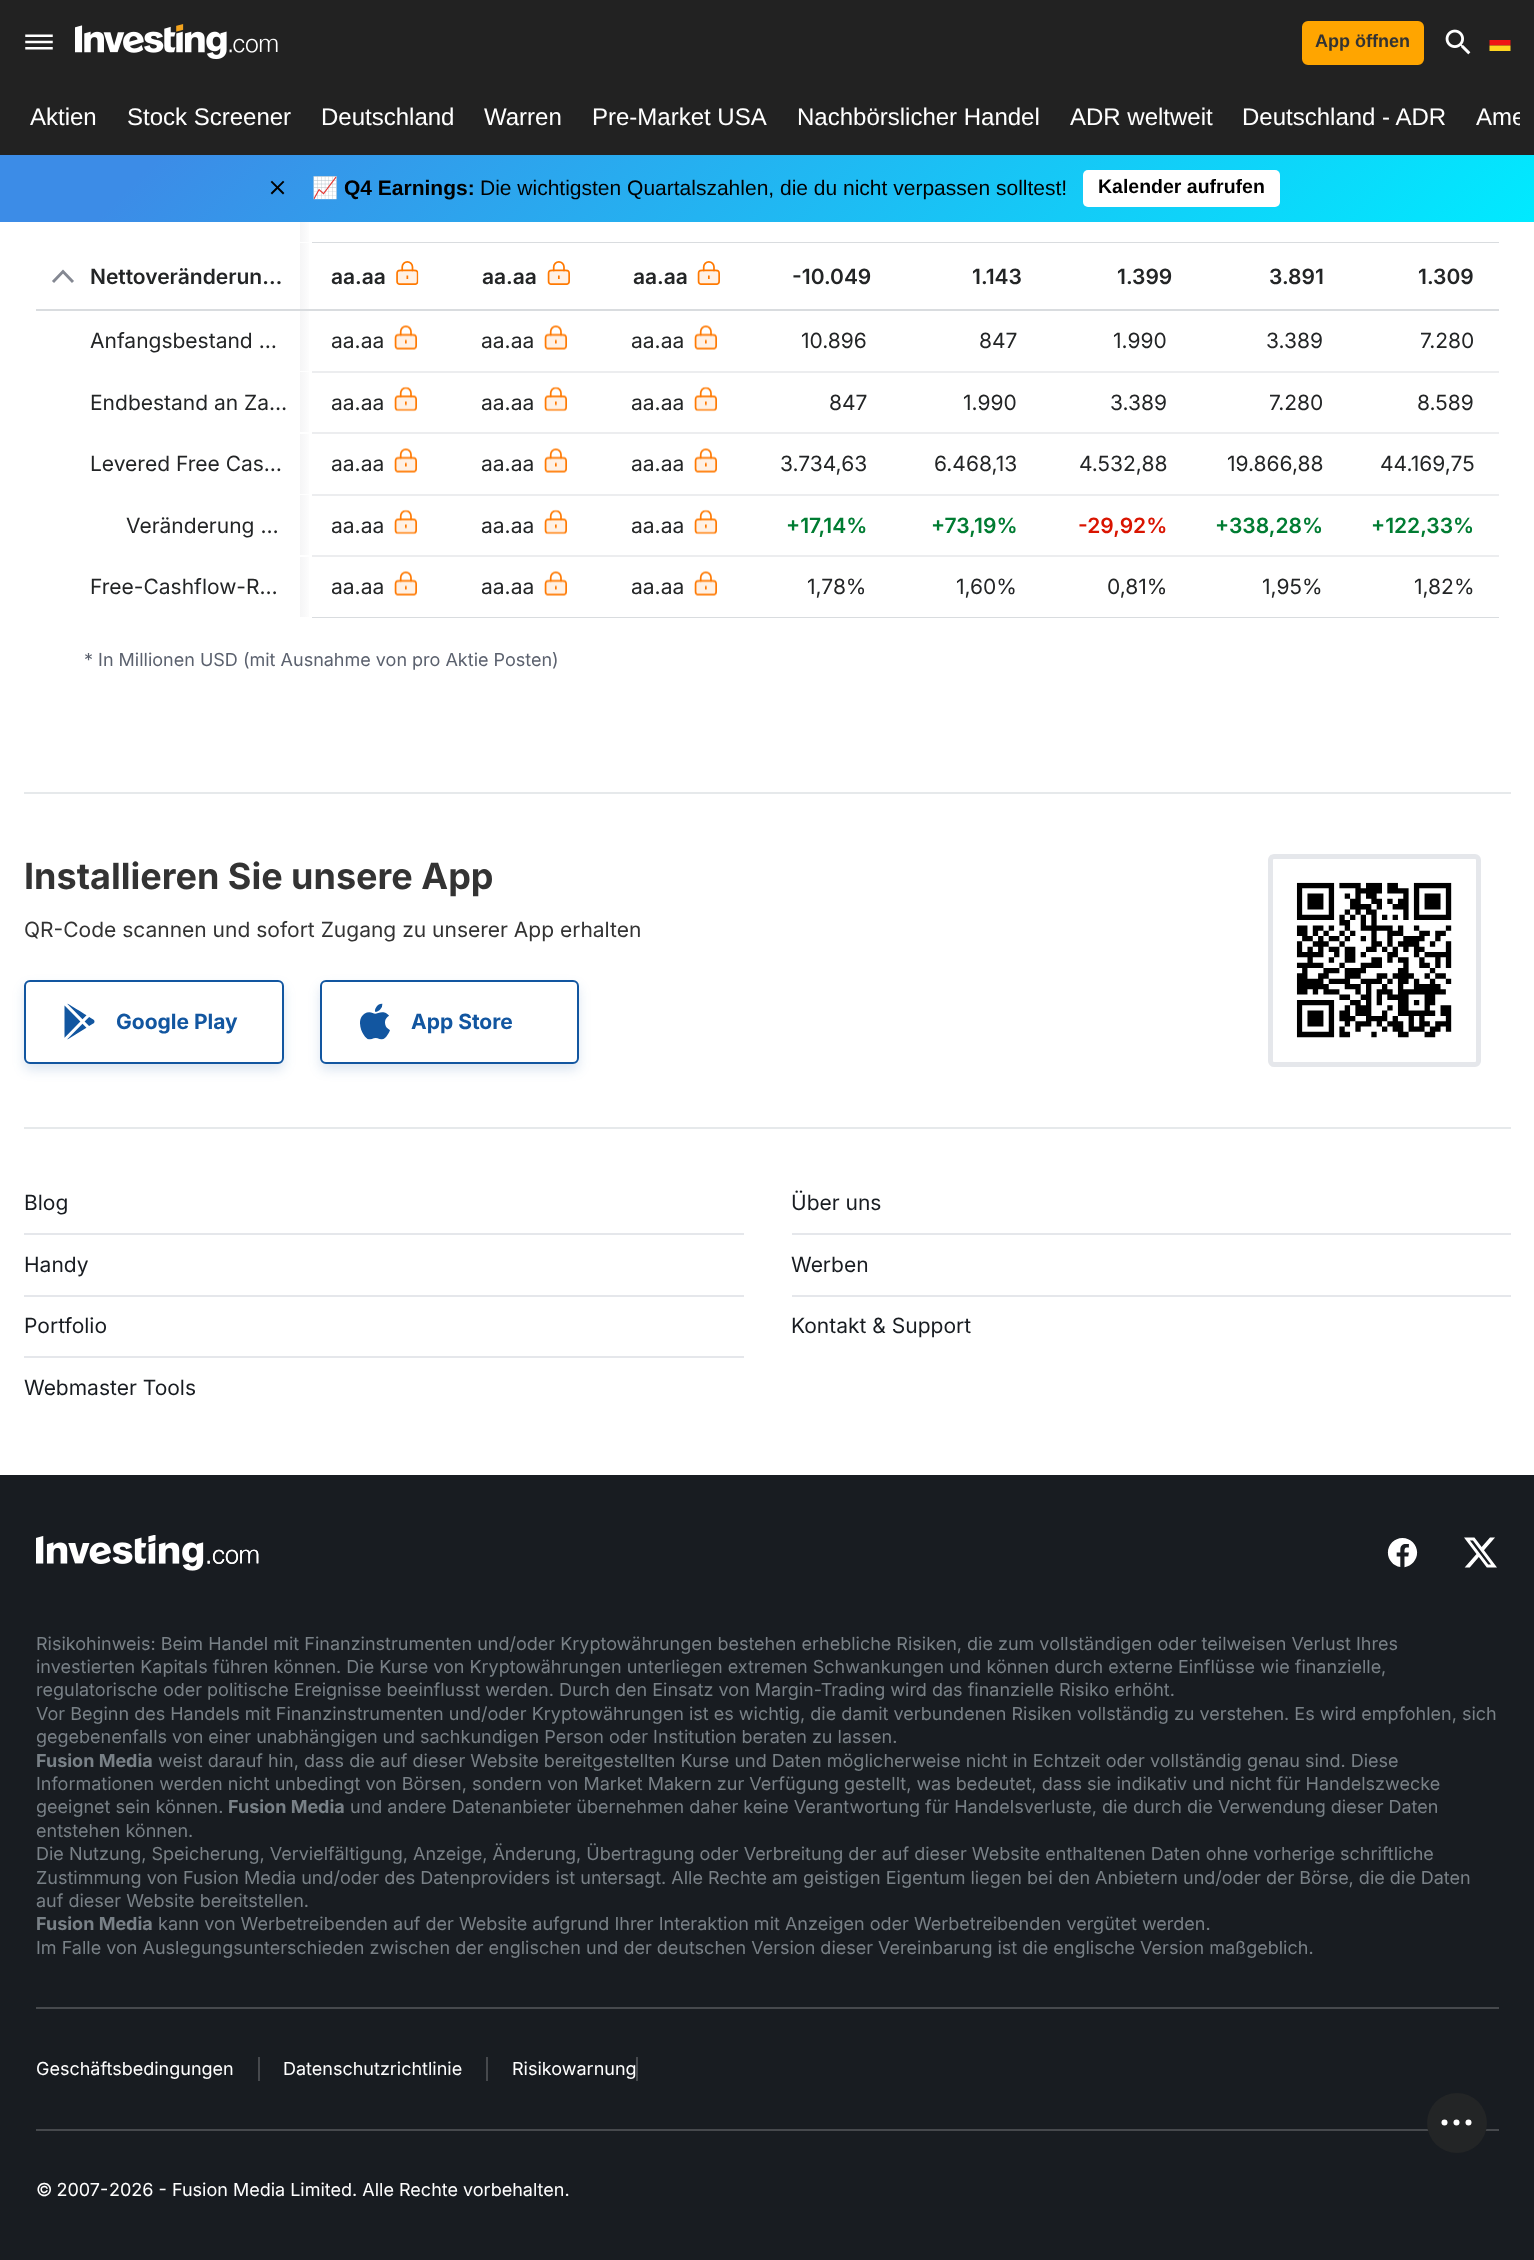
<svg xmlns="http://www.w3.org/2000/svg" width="1534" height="2260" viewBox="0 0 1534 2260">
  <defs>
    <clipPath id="clip1"><rect x="15" y="84" width="1505" height="71"/></clipPath>
    <linearGradient id="g1" gradientUnits="userSpaceOnUse" x1="367" y1="-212" x2="1168" y2="589"><stop offset="0.1" stop-color="rgb(60,140,231)"/><stop offset="1" stop-color="rgb(0,234,255)"/></linearGradient>
    <linearGradient id="g2" gradientUnits="userSpaceOnUse" x1="300" y1="212" x2="312" y2="212"><stop offset="0" stop-color="rgb(245,245,246)"/><stop offset="1" stop-color="rgb(255,255,255)"/></linearGradient>
    <linearGradient id="g3" gradientUnits="userSpaceOnUse" x1="300" y1="276" x2="312" y2="276"><stop offset="0" stop-color="rgb(245,245,246)"/><stop offset="1" stop-color="rgb(255,255,255)"/></linearGradient>
    <linearGradient id="g4" gradientUnits="userSpaceOnUse" x1="300" y1="341" x2="312" y2="341"><stop offset="0" stop-color="rgb(245,245,246)"/><stop offset="1" stop-color="rgb(255,255,255)"/></linearGradient>
    <linearGradient id="g5" gradientUnits="userSpaceOnUse" x1="300" y1="402" x2="312" y2="402"><stop offset="0" stop-color="rgb(245,245,246)"/><stop offset="1" stop-color="rgb(255,255,255)"/></linearGradient>
    <linearGradient id="g6" gradientUnits="userSpaceOnUse" x1="300" y1="464" x2="312" y2="464"><stop offset="0" stop-color="rgb(245,245,246)"/><stop offset="1" stop-color="rgb(255,255,255)"/></linearGradient>
    <linearGradient id="g7" gradientUnits="userSpaceOnUse" x1="300" y1="525" x2="312" y2="525"><stop offset="0" stop-color="rgb(245,245,246)"/><stop offset="1" stop-color="rgb(255,255,255)"/></linearGradient>
    <linearGradient id="g8" gradientUnits="userSpaceOnUse" x1="300" y1="587" x2="312" y2="587"><stop offset="0" stop-color="rgb(245,245,246)"/><stop offset="1" stop-color="rgb(255,255,255)"/></linearGradient>
    <clipPath id="clip2"><rect x="332" y="326" width="52" height="30"/></clipPath>
    <clipPath id="clip3"><rect x="482" y="326" width="52" height="30"/></clipPath>
    <clipPath id="clip4"><rect x="632" y="326" width="52" height="30"/></clipPath>
    <clipPath id="clip5"><rect x="332" y="387" width="52" height="30"/></clipPath>
    <clipPath id="clip6"><rect x="482" y="387" width="52" height="30"/></clipPath>
    <clipPath id="clip7"><rect x="632" y="387" width="52" height="30"/></clipPath>
    <clipPath id="clip8"><rect x="332" y="449" width="52" height="30"/></clipPath>
    <clipPath id="clip9"><rect x="482" y="449" width="52" height="30"/></clipPath>
    <clipPath id="clip10"><rect x="632" y="449" width="52" height="30"/></clipPath>
    <clipPath id="clip11"><rect x="332" y="510" width="52" height="30"/></clipPath>
    <clipPath id="clip12"><rect x="482" y="510" width="52" height="30"/></clipPath>
    <clipPath id="clip13"><rect x="632" y="510" width="52" height="30"/></clipPath>
    <clipPath id="clip14"><rect x="332" y="572" width="52" height="30"/></clipPath>
    <clipPath id="clip15"><rect x="482" y="572" width="52" height="30"/></clipPath>
    <clipPath id="clip16"><rect x="632" y="572" width="52" height="30"/></clipPath>
  </defs>
  <rect width="100%" height="100%" fill="rgb(255,255,255)"/>
  <rect x="0" y="0" width="1534" height="155" fill="rgb(34,34,34)"/>
  <image x="25" y="34" width="28" height="16" href="pic1.png"/>
  <image x="75" y="24" width="203" height="36" href="pic2.png"/>
  <rect x="1303" y="22" width="120" height="42" rx="5" fill="rgb(255,165,0)" stroke="rgb(255,165,0)" stroke-width="2"/>
  <text x="1315" y="47" font-family="Liberation Sans" font-size="18" font-weight="bold" fill="rgb(51,51,51)">App öffnen</text>
  <image x="1445" y="29" width="26" height="26" href="pic3.png"/>
  <image x="1489" y="40" width="22" height="11" href="pic4.png"/>
  <g font-family="Liberation Sans" font-size="24" fill="rgb(255,255,255)">
    <text x="30" y="125">Aktien</text>
    <text x="127" y="125">Stock Screener</text>
    <text x="321" y="125">Deutschland</text>
    <text x="484" y="125">Warren</text>
    <text x="592" y="125">Pre-Market USA</text>
    <text x="797" y="125">Nachbörslicher Handel</text>
    <text x="1070" y="125">ADR weltweit</text>
    <text x="1242" y="125">Deutschland - ADR</text>
  </g>
  <g clip-path="url(#clip1)">
    <text x="1476" y="125" font-family="Liberation Sans" font-size="24" fill="rgb(255,255,255)">Ame</text>
  </g>
  <rect x="0" y="155" width="1534" height="67" fill="url(#g1)"/>
  <image x="270" y="180" width="15" height="15" href="pic5.png"/>
  <text x="312" y="195" font-family="Noto Color Emoji" font-size="21" fill="rgb(0,0,0)">📈</text>
  <text x="344" y="195" font-family="Liberation Sans" font-size="21" font-weight="bold" fill="rgb(0,0,0)">Q4 Earnings:</text>
  <text x="480" y="195" font-family="Liberation Sans" font-size="21" fill="rgb(0,0,0)">Die wichtigsten Quartalszahlen, die du nicht verpassen solltest!</text>
  <rect x="1083" y="170" width="197" height="37" rx="5" fill="rgb(255,255,255)"/>
  <text x="1098" y="193" font-family="Liberation Sans" font-size="19.5" font-weight="bold" fill="rgb(0,0,0)">Kalender aufrufen</text>
  <rect x="300" y="222" width="9" height="20" fill="url(#g2)"/>
  <rect x="312" y="242" width="1187" height="1" fill="rgb(217,220,223)"/>
  <path d="M53 282L63 271.5L73 282" fill="none" stroke="rgb(132,136,146)" stroke-width="2.9"/>
  <text x="90" y="284" font-family="Inter" font-size="21" font-weight="600" fill="rgb(35,37,38)">Nettoveränderun…</text>
  <rect x="300" y="243" width="9" height="66" fill="url(#g3)"/>
  <text x="331" y="284" font-family="Inter" font-size="21" font-weight="600" fill="rgb(35,37,38)">aa.aa</text>
  <image x="396" y="261" width="23" height="24" href="pic6.png"/>
  <text x="482" y="284" font-family="Inter" font-size="21" font-weight="600" fill="rgb(35,37,38)">aa.aa</text>
  <image x="547" y="261" width="23" height="24" href="pic7.png"/>
  <text x="633" y="284" font-family="Inter" font-size="21" font-weight="600" fill="rgb(35,37,38)">aa.aa</text>
  <image x="697" y="261" width="23" height="24" href="pic7.png"/>
  <g font-family="Inter" font-size="21" font-weight="600" fill="rgb(35,37,38)">
    <text x="792" y="284">-10.049</text>
    <text x="972" y="284">1.143</text>
    <text x="1117" y="284">1.399</text>
    <text x="1269" y="284">3.891</text>
    <text x="1418" y="284">1.309</text>
  </g>
  <rect x="36" y="309" width="1463" height="2" fill="rgb(217,220,223)"/>
  <text x="90" y="348" font-family="Inter" font-size="21" fill="rgb(35,37,38)">Anfangsbestand …</text>
  <rect x="300" y="311" width="9" height="60" fill="url(#g4)"/>
  <text x="90" y="410" font-family="Inter" font-size="21" fill="rgb(35,37,38)">Endbestand an Za…</text>
  <rect x="300" y="372" width="9" height="60" fill="url(#g5)"/>
  <text x="90" y="471" font-family="Inter" font-size="21" fill="rgb(35,37,38)">Levered Free Cas…</text>
  <rect x="300" y="434" width="9" height="60" fill="url(#g6)"/>
  <text x="126" y="533" font-family="Inter" font-size="21" fill="rgb(35,37,38)">Veränderung …</text>
  <rect x="300" y="495" width="9" height="60" fill="url(#g7)"/>
  <text x="90" y="594" font-family="Inter" font-size="21" fill="rgb(35,37,38)">Free-Cashflow-R…</text>
  <rect x="300" y="557" width="9" height="60" fill="url(#g8)"/>
  <rect x="312" y="371" width="1187" height="2" fill="rgb(236,237,239)"/>
  <g clip-path="url(#clip2)">
    <text x="331" y="348" font-family="Inter" font-size="21" fill="rgb(35,37,38)">aa.aa</text>
  </g>
  <image x="394" y="325" width="23" height="25" href="pic8.png"/>
  <g clip-path="url(#clip3)">
    <text x="481" y="348" font-family="Inter" font-size="21" fill="rgb(35,37,38)">aa.aa</text>
  </g>
  <image x="544" y="325" width="23" height="25" href="pic8.png"/>
  <g clip-path="url(#clip4)">
    <text x="631" y="348" font-family="Inter" font-size="21" fill="rgb(35,37,38)">aa.aa</text>
  </g>
  <image x="694" y="325" width="23" height="25" href="pic8.png"/>
  <g font-family="Inter" font-size="21" fill="rgb(35,37,38)">
    <text x="801" y="348">10.896</text>
    <text x="979" y="348">847</text>
    <text x="1113" y="348">1.990</text>
    <text x="1266" y="348">3.389</text>
    <text x="1420" y="348">7.280</text>
  </g>
  <rect x="312" y="432" width="1187" height="2" fill="rgb(236,237,239)"/>
  <g clip-path="url(#clip5)">
    <text x="331" y="410" font-family="Inter" font-size="21" fill="rgb(35,37,38)">aa.aa</text>
  </g>
  <image x="394" y="386" width="23" height="26" href="pic9.png"/>
  <g clip-path="url(#clip6)">
    <text x="481" y="410" font-family="Inter" font-size="21" fill="rgb(35,37,38)">aa.aa</text>
  </g>
  <image x="544" y="386" width="23" height="26" href="pic9.png"/>
  <g clip-path="url(#clip7)">
    <text x="631" y="410" font-family="Inter" font-size="21" fill="rgb(35,37,38)">aa.aa</text>
  </g>
  <image x="694" y="386" width="23" height="26" href="pic9.png"/>
  <g font-family="Inter" font-size="21" fill="rgb(35,37,38)">
    <text x="829" y="410">847</text>
    <text x="963" y="410">1.990</text>
    <text x="1110" y="410">3.389</text>
    <text x="1269" y="410">7.280</text>
    <text x="1417" y="410">8.589</text>
  </g>
  <rect x="312" y="494" width="1187" height="2" fill="rgb(236,237,239)"/>
  <g clip-path="url(#clip8)">
    <text x="331" y="471" font-family="Inter" font-size="21" fill="rgb(35,37,38)">aa.aa</text>
  </g>
  <image x="394" y="448" width="23" height="25" href="pic8.png"/>
  <g clip-path="url(#clip9)">
    <text x="481" y="471" font-family="Inter" font-size="21" fill="rgb(35,37,38)">aa.aa</text>
  </g>
  <image x="544" y="448" width="23" height="25" href="pic8.png"/>
  <g clip-path="url(#clip10)">
    <text x="631" y="471" font-family="Inter" font-size="21" fill="rgb(35,37,38)">aa.aa</text>
  </g>
  <image x="694" y="448" width="23" height="25" href="pic8.png"/>
  <g font-family="Inter" font-size="21" fill="rgb(35,37,38)">
    <text x="780" y="471">3.734,63</text>
    <text x="934" y="471">6.468,13</text>
    <text x="1079" y="471">4.532,88</text>
    <text x="1227" y="471">19.866,88</text>
    <text x="1380" y="471">44.169,75</text>
  </g>
  <rect x="312" y="555" width="1187" height="2" fill="rgb(236,237,239)"/>
  <g clip-path="url(#clip11)">
    <text x="331" y="533" font-family="Inter" font-size="21" fill="rgb(35,37,38)">aa.aa</text>
  </g>
  <image x="394" y="509" width="23" height="26" href="pic9.png"/>
  <g clip-path="url(#clip12)">
    <text x="481" y="533" font-family="Inter" font-size="21" fill="rgb(35,37,38)">aa.aa</text>
  </g>
  <image x="544" y="509" width="23" height="26" href="pic9.png"/>
  <g clip-path="url(#clip13)">
    <text x="631" y="533" font-family="Inter" font-size="21" fill="rgb(35,37,38)">aa.aa</text>
  </g>
  <image x="694" y="509" width="23" height="26" href="pic9.png"/>
  <g font-family="Inter" font-size="21" font-weight="600" fill="rgb(0,124,50)">
    <text x="786" y="533">+17,14%</text>
    <text x="931" y="533">+73,19%</text>
  </g>
  <text x="1078" y="533" font-family="Inter" font-size="21" font-weight="600" fill="rgb(217,20,0)">-29,92%</text>
  <g font-family="Inter" font-size="21" font-weight="600" fill="rgb(0,124,50)">
    <text x="1215" y="533">+338,28%</text>
    <text x="1371" y="533">+122,33%</text>
  </g>
  <rect x="312" y="617" width="1187" height="1" fill="rgb(217,220,223)"/>
  <g clip-path="url(#clip14)">
    <text x="331" y="594" font-family="Inter" font-size="21" fill="rgb(35,37,38)">aa.aa</text>
  </g>
  <image x="394" y="571" width="23" height="25" href="pic8.png"/>
  <g clip-path="url(#clip15)">
    <text x="481" y="594" font-family="Inter" font-size="21" fill="rgb(35,37,38)">aa.aa</text>
  </g>
  <image x="544" y="571" width="23" height="25" href="pic8.png"/>
  <g clip-path="url(#clip16)">
    <text x="631" y="594" font-family="Inter" font-size="21" fill="rgb(35,37,38)">aa.aa</text>
  </g>
  <image x="694" y="571" width="23" height="25" href="pic8.png"/>
  <g font-family="Inter" font-size="21" fill="rgb(35,37,38)">
    <text x="807" y="594">1,78%</text>
    <text x="956" y="594">1,60%</text>
    <text x="1107" y="594">0,81%</text>
    <text x="1262" y="594">1,95%</text>
    <text x="1414" y="594">1,82%</text>
  </g>
  <text x="84" y="666" font-family="Inter" font-size="18" fill="rgb(91,97,110)">* In Millionen USD (mit Ausnahme von pro Aktie Posten)</text>
  <rect x="0" y="1475" width="1534" height="785" fill="rgb(24,28,33)"/>
  <rect x="36" y="2129" width="1463" height="2" fill="rgb(70,73,77)"/>
  <circle cx="1457" cy="2123" r="30" fill="rgb(35,37,38)"/>
  <circle cx="1468.5" cy="2122.5" r="3" fill="rgb(255,255,255)"/>
  <circle cx="1444.5" cy="2122.5" r="3" fill="rgb(255,255,255)"/>
  <circle cx="1456.5" cy="2122.5" r="3" fill="rgb(255,255,255)"/>
  <rect x="24" y="792" width="1487" height="2" fill="rgb(230,233,235)"/>
  <rect x="24" y="1127" width="1487" height="2" fill="rgb(230,233,235)"/>
  <text x="24" y="889" font-family="Inter" font-size="36" font-weight="bold" fill="rgb(51,51,51)">Installieren Sie unsere App</text>
  <text x="24" y="937" font-family="Inter" font-size="21" fill="rgb(51,51,51)">QR-Code scannen und sofort Zugang zu unserer App erhalten</text>
  <rect x="24" y="986" width="260" height="84" rx="6" fill="rgba(18,86,160,0.15)" filter="blur(6px)"/>
  <rect x="25" y="981" width="258" height="82" rx="5" fill="rgb(255,255,255)" stroke="rgb(18,86,160)" stroke-width="2"/>
  <image x="64" y="1003" width="31" height="37" href="pic10.png"/>
  <text x="116" y="1029" font-family="Inter" font-size="21" font-weight="bold" fill="rgb(18,86,160)">Google Play</text>
  <rect x="320" y="986" width="259" height="84" rx="6" fill="rgba(18,86,160,0.15)" filter="blur(6px)"/>
  <rect x="321" y="981" width="257" height="82" rx="5" fill="rgb(255,255,255)" stroke="rgb(18,86,160)" stroke-width="2"/>
  <image x="360" y="1003" width="30" height="37" href="pic11.png"/>
  <text x="411" y="1029" font-family="Inter" font-size="21" font-weight="bold" fill="rgb(18,86,160)">App Store</text>
  <rect x="1270.5" y="856.5" width="208" height="208" rx="3.5" fill="none" stroke="rgb(229,231,235)" stroke-width="5"/>
  <image x="1296" y="882" width="156" height="156" href="pic12.png"/>
  <rect x="24" y="1233" width="720" height="2" fill="rgb(229,231,235)"/>
  <text x="24" y="1210" font-family="Inter" font-size="21" fill="rgb(24,28,33)">Blog</text>
  <rect x="24" y="1295" width="720" height="2" fill="rgb(229,231,235)"/>
  <text x="24" y="1272" font-family="Inter" font-size="21" fill="rgb(24,28,33)">Handy</text>
  <rect x="24" y="1356" width="720" height="2" fill="rgb(229,231,235)"/>
  <g font-family="Inter" font-size="21" fill="rgb(24,28,33)">
    <text x="24" y="1333">Portfolio</text>
    <text x="24" y="1395">Webmaster Tools</text>
  </g>
  <rect x="792" y="1233" width="719" height="2" fill="rgb(229,231,235)"/>
  <text x="791" y="1210" font-family="Inter" font-size="21" fill="rgb(24,28,33)">Über uns</text>
  <rect x="792" y="1295" width="719" height="2" fill="rgb(229,231,235)"/>
  <g font-family="Inter" font-size="21" fill="rgb(24,28,33)">
    <text x="791" y="1272">Werben</text>
    <text x="791" y="1333">Kontakt &amp; Support</text>
  </g>
  <image x="36" y="1535" width="223" height="36" href="pic13.png"/>
  <image x="1387" y="1538" width="31" height="30" href="pic14.png"/>
  <image x="1464" y="1537" width="33" height="31" href="pic15.png"/>
  <rect x="36" y="2007" width="1463" height="2" fill="rgb(70,73,77)"/>
  <g font-family="Inter" font-size="18" fill="rgb(121,129,135)">
    <text>
      <tspan x="36" y="1650">Risikohinweis: Beim Handel mit Finanzinstrumenten und/oder Kryptowährungen bestehen erhebliche Risiken, die zum vollständigen oder teilweisen Verlust Ihres</tspan>
      <tspan x="36" y="1673">investierten Kapitals führen können. Die Kurse von Kryptowährungen unterliegen extremen Schwankungen und können durch externe Einflüsse wie finanzielle,</tspan>
      <tspan x="36" y="1696">regulatorische oder politische Ereignisse beeinflusst werden. Durch den Einsatz von Margin-Trading wird das finanzielle Risiko erhöht.</tspan>
      <tspan x="36" y="1720">Vor Beginn des Handels mit Finanzinstrumenten und/oder Kryptowährungen ist es wichtig, die damit verbundenen Risiken vollständig zu verstehen. Es wird empfohlen, sich</tspan>
      <tspan x="36" y="1743">gegebenenfalls von einer unabhängigen und sachkundigen Person oder Institution beraten zu lassen.</tspan>
    </text>
  </g>
  <text x="36" y="1767" font-family="Inter" font-size="18" font-weight="bold" fill="rgb(121,129,135)">Fusion Media</text>
  <g font-family="Inter" font-size="18" fill="rgb(121,129,135)">
    <text x="158" y="1767">weist darauf hin, dass die auf dieser Website bereitgestellten Kurse und Daten möglicherweise nicht in Echtzeit oder vollständig genau sind. Diese</text>
    <text>
      <tspan x="36" y="1790">Informationen werden nicht unbedingt von Börsen, sondern von Market Makern zur Verfügung gestellt, was bedeutet, dass sie indikativ und nicht für Handelszwecke</tspan>
      <tspan x="36" y="1813">geeignet sein können.</tspan>
    </text>
  </g>
  <text x="228" y="1813" font-family="Inter" font-size="18" font-weight="bold" fill="rgb(121,129,135)">Fusion Media</text>
  <g font-family="Inter" font-size="18" fill="rgb(121,129,135)">
    <text x="350" y="1813">und andere Datenanbieter übernehmen daher keine Verantwortung für Handelsverluste, die durch die Verwendung dieser Daten</text>
    <text>
      <tspan x="36" y="1837">entstehen können.</tspan>
      <tspan x="36" y="1860">Die Nutzung, Speicherung, Vervielfältigung, Anzeige, Änderung, Übertragung oder Verbreitung der auf dieser Website enthaltenen Daten ohne vorherige schriftliche</tspan>
      <tspan x="36" y="1884">Zustimmung von Fusion Media und/oder des Datenproviders ist untersagt. Alle Rechte am geistigen Eigentum liegen bei den Anbietern und/oder der Börse, die die Daten</tspan>
      <tspan x="36" y="1907">auf dieser Website bereitstellen.</tspan>
    </text>
  </g>
  <text x="36" y="1930" font-family="Inter" font-size="18" font-weight="bold" fill="rgb(121,129,135)">Fusion Media</text>
  <g font-family="Inter" font-size="18" fill="rgb(121,129,135)">
    <text x="158" y="1930">kann von Werbetreibenden auf der Website aufgrund Ihrer Interaktion mit Anzeigen oder Werbetreibenden vergütet werden.</text>
    <text x="36" y="1954">Im Falle von Auslegungsunterschieden zwischen der englischen und der deutschen Version dieser Vereinbarung ist die englische Version maßgeblich.</text>
  </g>
  <rect x="258" y="2057" width="2" height="24" fill="rgb(70,73,77)"/>
  <text x="36" y="2075" font-family="Inter" font-size="18" fill="rgb(255,255,255)">Geschäftsbedingungen</text>
  <rect x="486" y="2057" width="2" height="24" fill="rgb(70,73,77)"/>
  <text x="283" y="2075" font-family="Inter" font-size="18" fill="rgb(255,255,255)">Datenschutzrichtlinie</text>
  <rect x="636" y="2057" width="2" height="24" fill="rgb(70,73,77)"/>
  <g font-family="Inter" font-size="18" fill="rgb(255,255,255)">
    <text x="512" y="2075">Risikowarnung</text>
    <text x="36" y="2196" word-spacing="-1">© 2007-</text>
    <text x="109" y="2196">2026 - Fusion Media Limited. Alle Rechte vorbehalten.</text>
  </g>
</svg>
